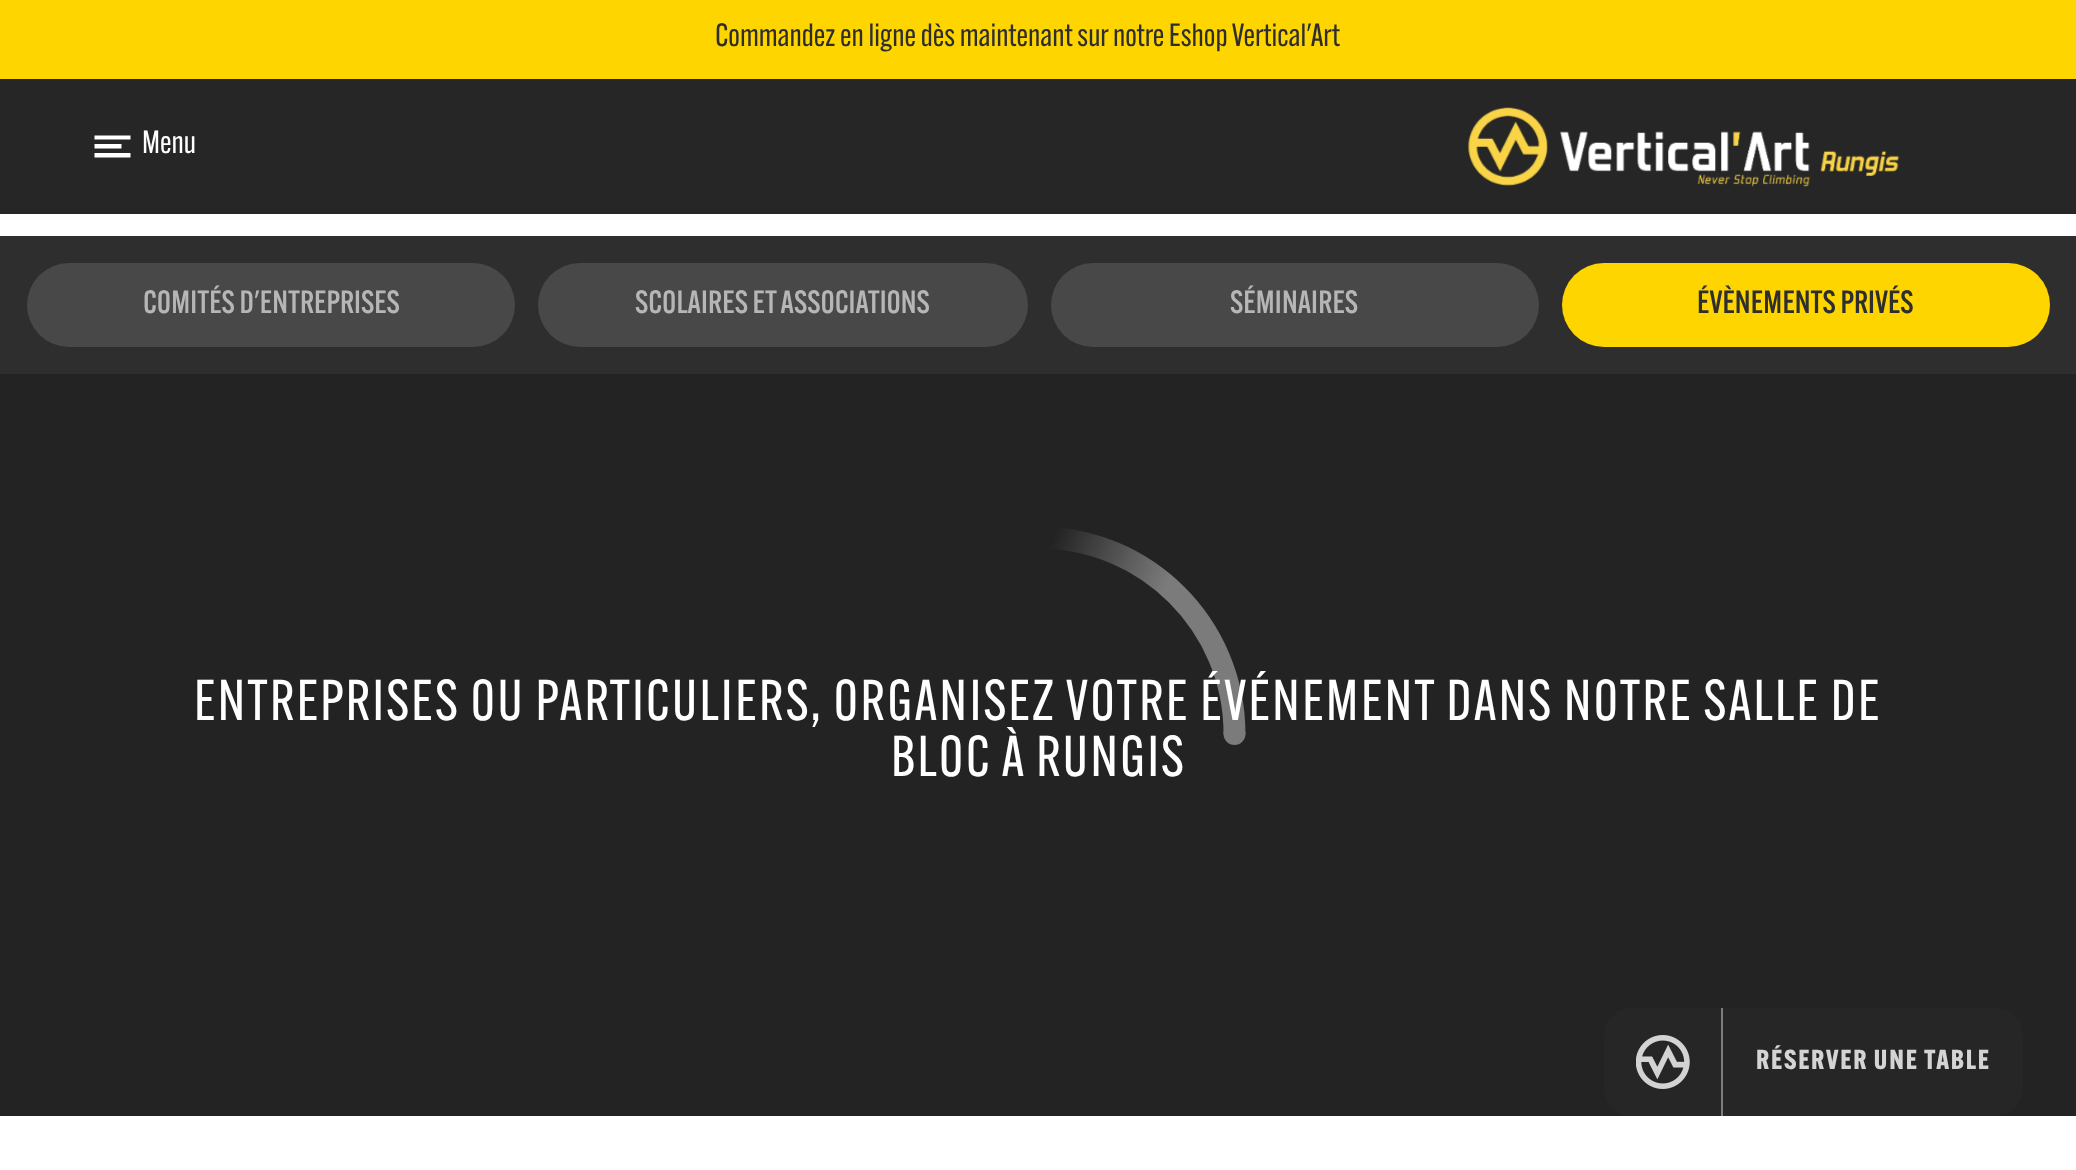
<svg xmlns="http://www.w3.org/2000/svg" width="2076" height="1170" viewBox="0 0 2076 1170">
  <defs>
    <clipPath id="clip1"><rect x="830" y="527" width="417" height="414"/></clipPath>
    <linearGradient id="g1" gradientUnits="userSpaceOnUse" x1="1054" y1="537" x2="1167" y2="584"><stop offset="0" stop-color="rgb(35,35,35)"/><stop offset="0.63" stop-color="rgb(91,91,91)"/><stop offset="1" stop-color="rgb(123,123,123)"/></linearGradient>
  </defs>
  <rect width="100%" height="100%" fill="rgb(255,255,255)"/>
  <rect x="0" y="0" width="2076" height="79" fill="rgb(255,213,0)"/>
  <text x="715" y="46" font-family="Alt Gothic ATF" font-size="31.5" fill="rgb(46,46,46)">Commandez en ligne dès maintenant sur notre Eshop Vertical'Art</text>
  <rect x="0" y="79" width="2076" height="135" fill="rgb(38,38,38)"/>
  <path d="M94.5 135.5H130.5V139.5H94.5ZM94.5 144H121.5V148.5H94.5ZM94.5 153H130.5V157.5H94.5Z" fill="rgb(255,255,255)"/>
  <text x="142" y="153" font-family="Alt Gothic ATF" font-size="31.5" fill="rgb(255,255,255)">Menu</text>
  <image x="1468" y="107" width="432" height="80" href="pic1.png"/>
  <rect x="0" y="374" width="2076" height="742" fill="rgb(35,35,35)"/>
  <rect x="0" y="236" width="2076" height="138" fill="rgb(46,46,46)"/>
  <rect x="27" y="263" width="488" height="84" rx="42" fill="rgb(72,72,72)"/>
  <text x="143" y="313" font-family="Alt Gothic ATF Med" font-size="31.5" font-weight="500" fill="rgb(182,182,182)">COMITÉS D'ENTREPRISES</text>
  <rect x="538" y="263" width="490" height="84" rx="42" fill="rgb(72,72,72)"/>
  <text x="635" y="313" font-family="Alt Gothic ATF Med" font-size="31.5" font-weight="500" fill="rgb(182,182,182)">SCOLAIRES ET ASSOCIATIONS</text>
  <rect x="1051" y="263" width="488" height="84" rx="42" fill="rgb(72,72,72)"/>
  <text x="1230" y="313" font-family="Alt Gothic ATF Med" font-size="31.5" font-weight="500" fill="rgb(182,182,182)">SÉMINAIRES</text>
  <rect x="1562" y="263" width="488" height="84" rx="42" fill="rgb(255,213,0)"/>
  <text x="1697" y="313" font-family="Alt Gothic ATF Med" font-size="31.5" font-weight="500" fill="rgb(46,46,46)">ÉVÈNEMENTS PRIVÉS</text>
  <g clip-path="url(#clip1)">
    <path d="M1234.5 734C1234.5 625.5 1146.5 537.5 1038 537.5" fill="none" stroke="url(#g1)" stroke-width="21.9"/>
  </g>
  <circle cx="1234.5" cy="734" r="11" fill="rgb(123,123,123)"/>
  <g font-family="Alt Gothic ATF" font-size="56.25" letter-spacing="2.25" fill="rgb(255,255,255)">
    <text x="194" y="720">ENTREPRISES OU PARTICULIERS, ORGANISEZ VOTRE ÉVÉNEMENT DANS NOTRE SALLE DE</text>
    <text x="891" y="776">BLOC À RUNGIS</text>
  </g>
  <rect x="1604" y="1008" width="419" height="108" rx="27" fill="rgb(38,38,38)"/>
  <image x="1636" y="1035" width="54" height="54" href="pic2.png"/>
  <rect x="1721" y="1008" width="2" height="108" fill="rgb(125,125,125)"/>
  <text x="1756" y="1069" font-family="Alt Gothic ATF" font-size="27" font-weight="bold" letter-spacing="1.75" fill="rgb(212,212,212)">RÉSERVER UNE TABLE</text>
</svg>
